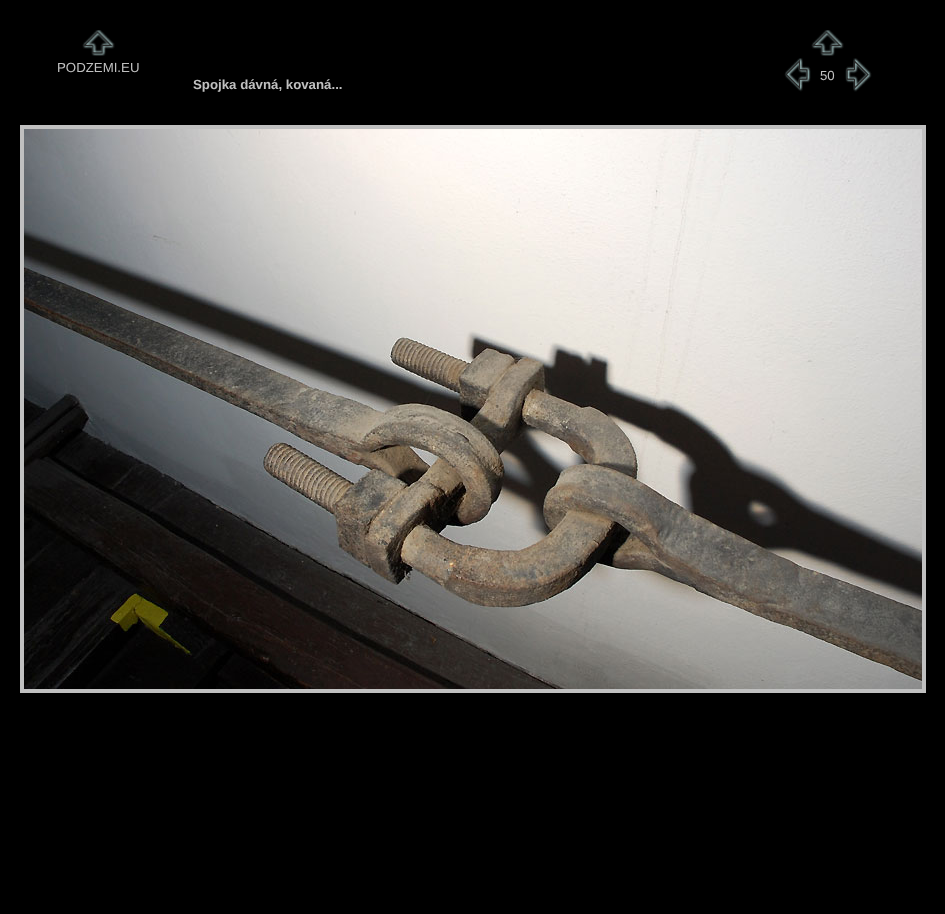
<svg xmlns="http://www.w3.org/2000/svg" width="945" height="914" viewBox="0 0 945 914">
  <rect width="100%" height="100%" fill="rgb(0,0,0)"/>
  <image x="82" y="30" width="33" height="26" href="pic1.png"/>
  <text x="57" y="72" font-family="Liberation Sans" font-size="13.25" fill="rgb(192,192,192)">PODZEMI.EU</text>
  <image x="811" y="30" width="33" height="26" href="pic1.png"/>
  <image x="784" y="58" width="27" height="34" href="pic2.png"/>
  <text x="820" y="80" font-family="Liberation Sans" font-size="13.25" fill="rgb(192,192,192)">50</text>
  <image x="845" y="58" width="27" height="34" href="pic3.png"/>
  <text x="193" y="89" font-family="Liberation Sans" font-size="13.25" font-weight="bold" fill="rgb(192,192,192)">Spojka dávná, kovaná...</text>
  <rect x="20" y="125" width="906" height="568" fill="rgb(192,192,192)"/>
  <image x="24" y="129" width="898" height="560" href="pic4.png"/>
</svg>
